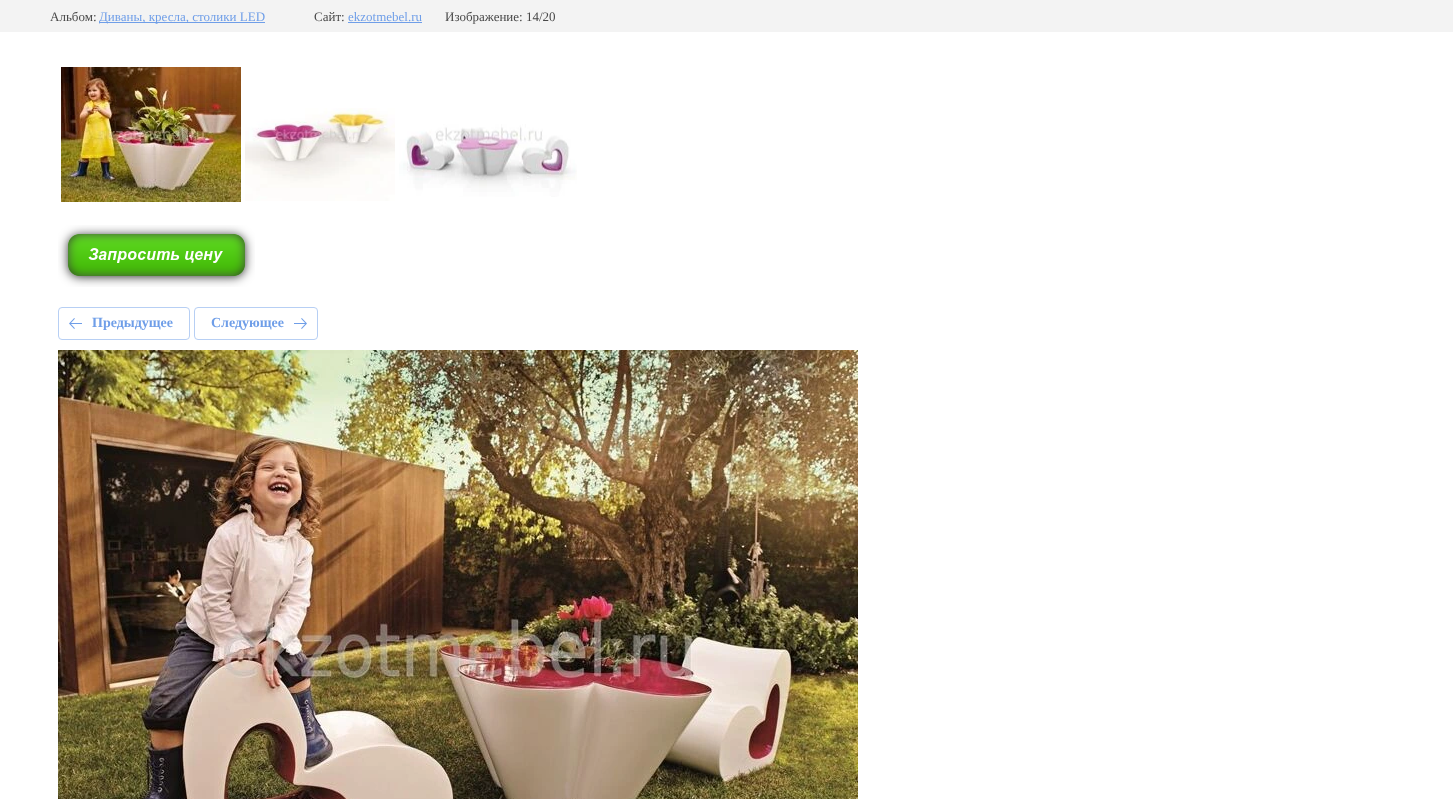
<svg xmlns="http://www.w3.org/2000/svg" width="1453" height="799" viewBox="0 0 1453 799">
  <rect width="100%" height="100%" fill="rgb(255,255,255)"/>
  <rect x="0" y="0" width="1453" height="32" fill="rgb(243,243,243)"/>
  <text x="50" y="21" font-family="Liberation Serif" font-size="13" fill="rgb(72,72,72)">Альбом:</text>
  <rect x="99" y="22" width="166" height="1" fill="rgb(111,158,232)"/>
  <text x="99" y="21" font-family="Liberation Serif" font-size="13" fill="rgb(111,158,232)">Диваны, кресла, столики LED</text>
  <text x="314" y="21" font-family="Liberation Serif" font-size="13" fill="rgb(72,72,72)">Сайт:</text>
  <text x="348" y="21" font-family="Liberation Serif" font-size="13" fill="rgb(111,158,232)">ekzotmebel.ru</text>
  <rect x="348" y="22" width="74" height="1" fill="rgb(111,158,232)"/>
  <text x="445" y="21" font-family="Liberation Serif" font-size="13" fill="rgb(72,72,72)">Изображение: 14/20</text>
  <image x="61" y="67" width="180" height="135" href="pic1.png"/>
  <image x="245" y="108" width="150" height="93" href="pic2.png"/>
  <image x="399" y="124" width="178" height="73" href="pic3.png"/>
  <image x="58" y="225" width="197" height="62" href="pic4.png"/>
  <rect x="58.5" y="307.5" width="131" height="32" rx="3.5" fill="none" stroke="rgb(183,207,244)"/>
  <image x="69" y="318" width="13" height="11" href="pic5.png"/>
  <text x="92" y="327" font-family="Liberation Serif" font-size="14" font-weight="bold" fill="rgb(111,158,232)">Предыдущее</text>
  <rect x="194.5" y="307.5" width="123" height="32" rx="3.5" fill="none" stroke="rgb(183,207,244)"/>
  <text x="211" y="327" font-family="Liberation Serif" font-size="14" font-weight="bold" fill="rgb(111,158,232)">Следующее</text>
  <image x="294" y="318" width="13" height="11" href="pic6.png"/>
  <image x="58" y="350" width="800" height="449" href="pic7.png"/>
</svg>
